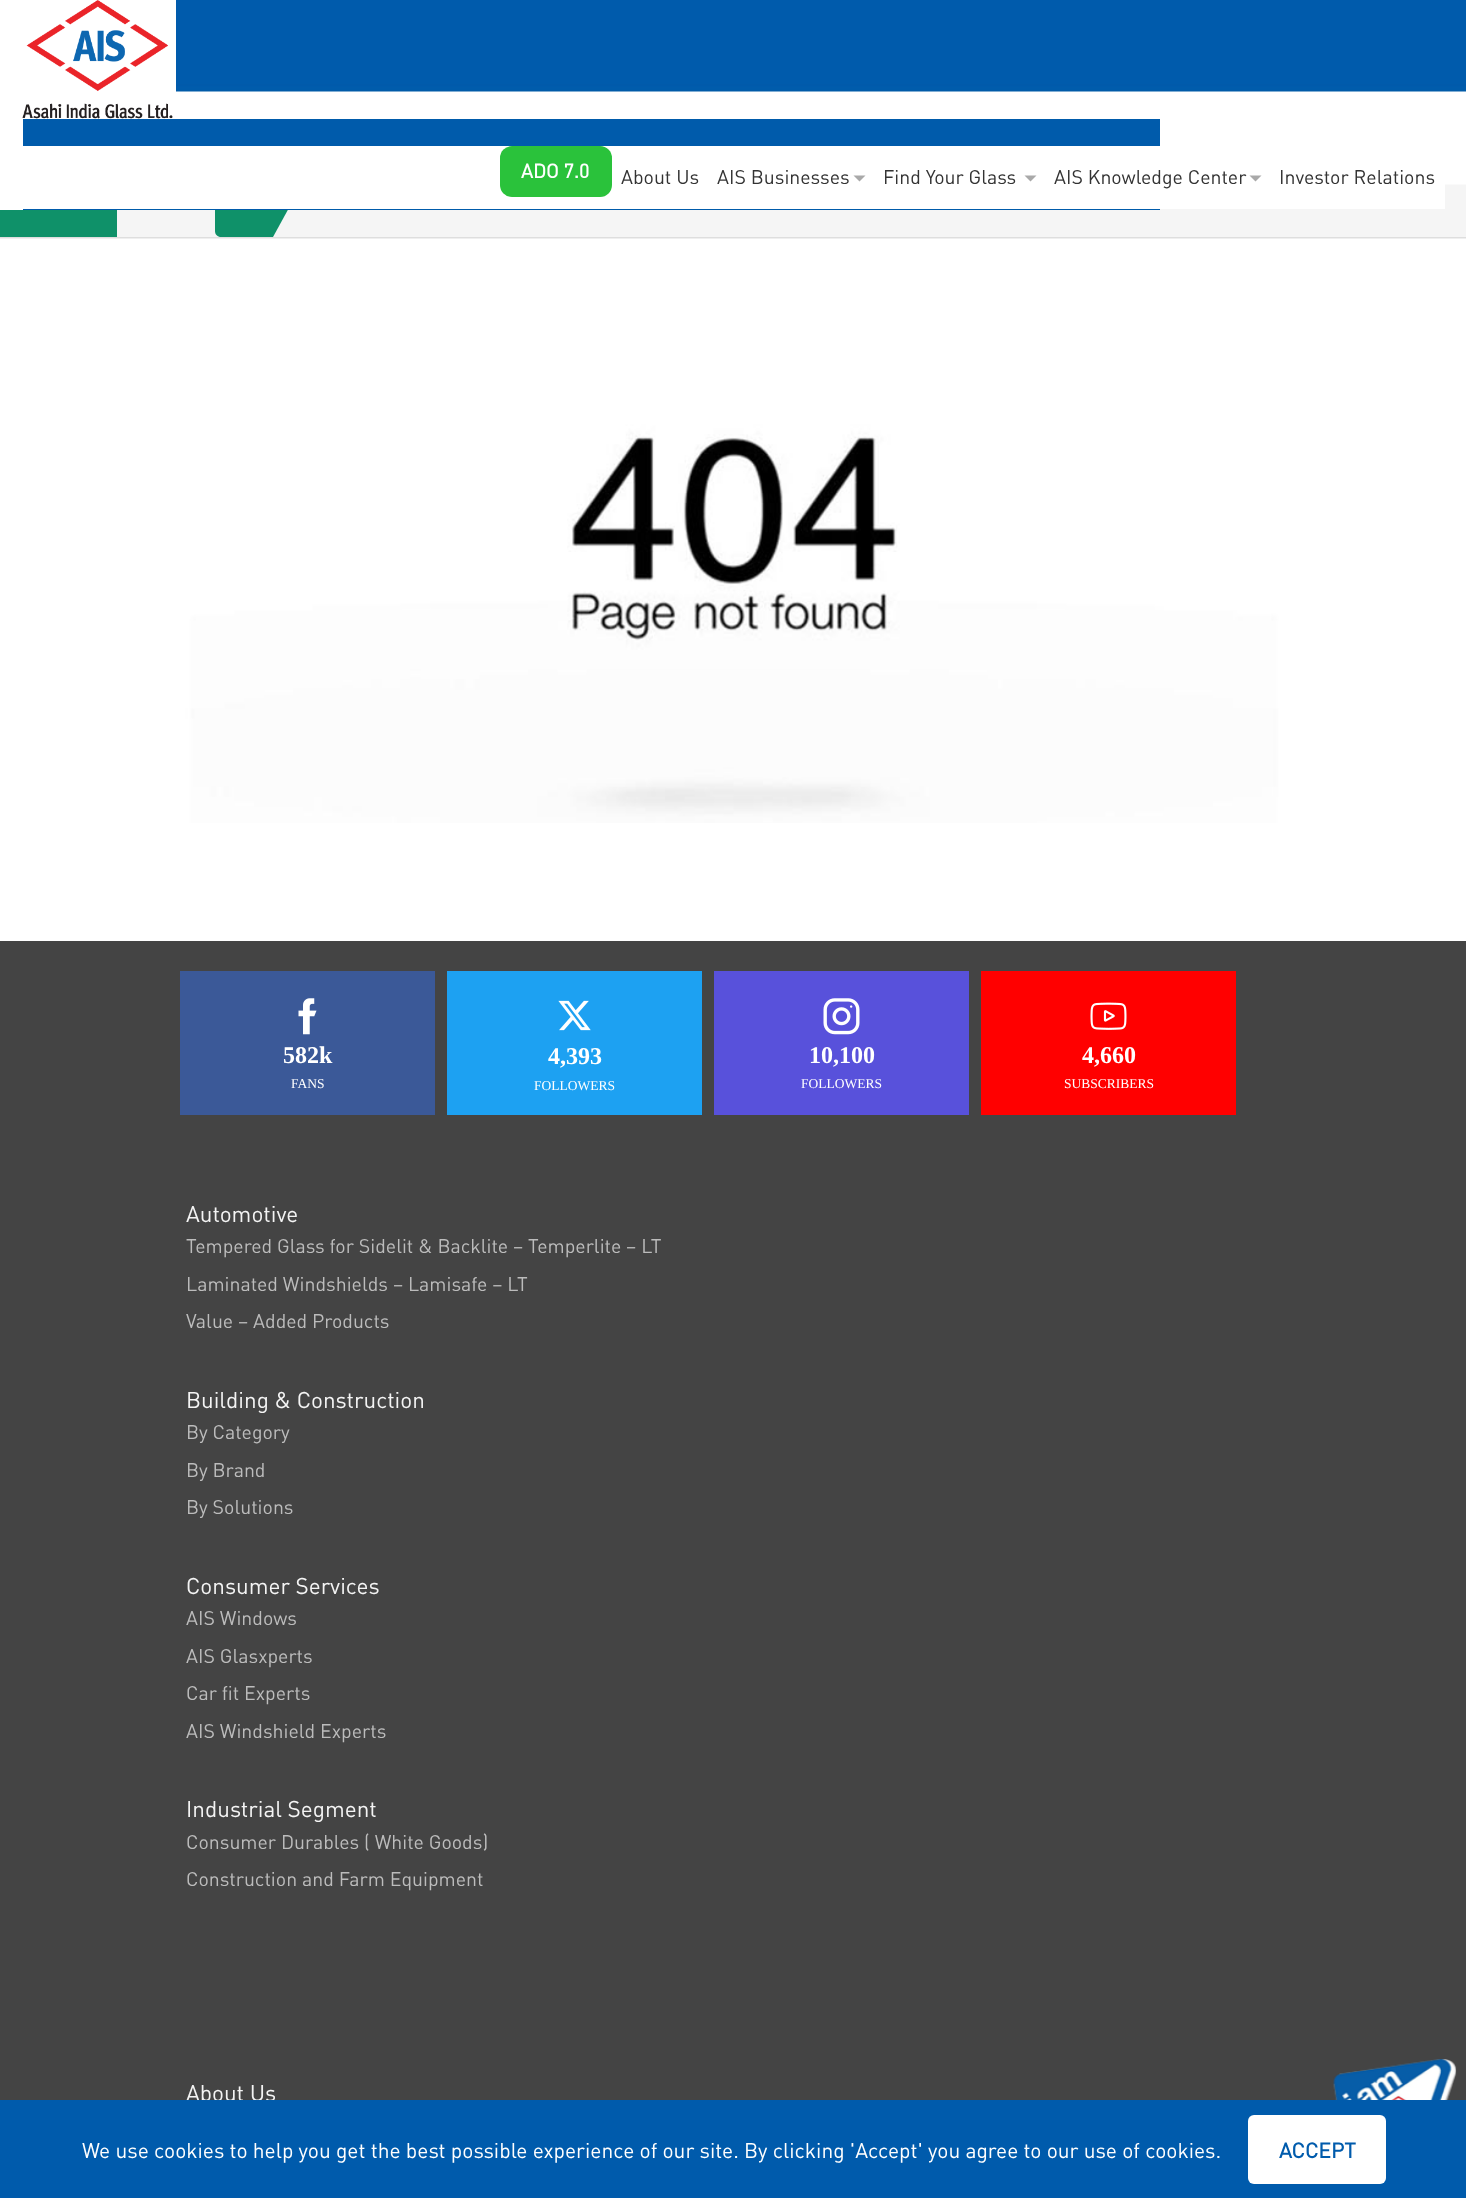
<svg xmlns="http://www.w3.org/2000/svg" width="1466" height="2198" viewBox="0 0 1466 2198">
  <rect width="100%" height="100%" fill="rgb(255,255,255)"/>
  <rect x="117" y="184" width="1349" height="53" fill="rgb(245,245,245)"/>
  <path d="M221 174H273V237H221C217.5 237 215 234.5 215 231V180C215 176.5 217.5 174 221 174Z" fill="rgb(15,145,105)"/>
  <path d="M274 236V172L290 204V207Z" fill="rgb(245,245,245)"/>
  <path d="M273 237V174L290 206Z" fill="rgb(15,145,105)"/>
  <image x="0" y="0" width="1466" height="210" href="pic1.png"/>
  <image x="22" y="0" width="151" height="119" href="pic2.png"/>
  <rect x="23" y="119" width="1137" height="91" fill="rgb(0,91,171)"/>
  <rect x="23" y="146" width="1422" height="63" fill="rgb(255,255,255)"/>
  <rect x="500" y="146" width="112" height="51" rx="12" fill="rgb(42,194,59)"/>
  <text x="521" y="178" font-family="DIN" font-size="19.5" font-weight="bold" fill="rgb(255,255,255)">ADO 7.0</text>
  <g font-family="DIN" font-size="19.5" fill="rgb(51,51,51)">
    <text x="621" y="184">About Us</text>
    <text x="717" y="184">AIS Businesses</text>
  </g>
  <path d="M853.5 175.5H865.5L859.5 181.5Z" fill="rgb(169,169,169)"/>
  <text x="883" y="184" font-family="DIN" font-size="19.5" fill="rgb(51,51,51)">Find Your Glass</text>
  <path d="M1024.5 175.5H1036.5L1030.5 181.5Z" fill="rgb(169,169,169)"/>
  <text x="1054" y="184" font-family="DIN" font-size="19.5" fill="rgb(51,51,51)">AIS Knowledge Center</text>
  <path d="M1249.5 175.5H1261.5L1255.5 181.5Z" fill="rgb(169,169,169)"/>
  <text x="1279" y="184" font-family="DIN" font-size="19.5" fill="rgb(51,51,51)">Investor Relations</text>
  <rect x="0" y="210" width="117" height="27" fill="rgb(15,145,105)"/>
  <rect x="0" y="237" width="1466" height="2" fill="rgb(222,222,222)"/>
  <image x="0" y="238" width="1466" height="585" href="pic3.png"/>
  <rect x="0" y="941" width="1466" height="1159" fill="rgb(68,68,68)"/>
  <rect x="180" y="971" width="255" height="144" fill="rgb(59,89,152)"/>
  <image x="298" y="998" width="19" height="37" href="pic4.png"/>
  <text x="283" y="1063" font-family="Liberation Serif" font-size="24" font-weight="bold" fill="rgb(255,255,255)">582k</text>
  <text x="291" y="1088" font-family="Liberation Serif" font-size="13.5" fill="rgb(255,255,255)">FANS</text>
  <rect x="447" y="971" width="255" height="144" fill="rgb(29,161,242)"/>
  <image x="558" y="1000" width="33" height="31" href="pic5.png"/>
  <text x="548" y="1064" font-family="Liberation Serif" font-size="24" font-weight="bold" fill="rgb(255,255,255)">4,393</text>
  <text x="534" y="1090" font-family="Liberation Serif" font-size="13.5" fill="rgb(255,255,255)">FOLLOWERS</text>
  <rect x="714" y="971" width="255" height="144" fill="rgb(88,81,219)"/>
  <image x="823" y="998" width="37" height="37" href="pic6.png"/>
  <text x="809" y="1063" font-family="Liberation Serif" font-size="24" font-weight="bold" fill="rgb(255,255,255)">10,100</text>
  <text x="801" y="1088" font-family="Liberation Serif" font-size="13.5" fill="rgb(255,255,255)">FOLLOWERS</text>
  <rect x="981" y="971" width="255" height="144" fill="rgb(255,0,0)"/>
  <image x="1090" y="1002" width="37" height="28" href="pic7.png"/>
  <text x="1082" y="1063" font-family="Liberation Serif" font-size="24" font-weight="bold" fill="rgb(255,255,255)">4,660</text>
  <text x="1064" y="1088" font-family="Liberation Serif" font-size="13.5" fill="rgb(255,255,255)">SUBSCRIBERS</text>
  <text x="186" y="1222" font-family="DIN" font-size="22.5" fill="rgb(244,244,244)">Automotive</text>
  <g font-family="DIN" font-size="19.5" fill="rgb(188,188,188)">
    <text>
      <tspan x="186" y="1253">Tempered Glass for Sidelit &amp; Backlite – Temperlite – LT</tspan>
      <tspan x="186" y="1291">Laminated Windshields – Lamisafe – LT</tspan>
      <tspan x="186" y="1328">Value – Added Products</tspan>
    </text>
  </g>
  <text x="186" y="1408" font-family="DIN" font-size="22.5" fill="rgb(244,244,244)">Building &amp; Construction</text>
  <g font-family="DIN" font-size="19.5" fill="rgb(188,188,188)">
    <text>
      <tspan x="186" y="1439">By Category</tspan>
      <tspan x="186" y="1477">By Brand</tspan>
      <tspan x="186" y="1514">By Solutions</tspan>
    </text>
  </g>
  <text x="186" y="1594" font-family="DIN" font-size="22.5" fill="rgb(244,244,244)">Consumer Services</text>
  <g font-family="DIN" font-size="19.5" fill="rgb(188,188,188)">
    <text>
      <tspan x="186" y="1625">AIS Windows</tspan>
      <tspan x="186" y="1663">AIS Glasxperts</tspan>
      <tspan x="186" y="1700">Car fit Experts</tspan>
      <tspan x="186" y="1738">AIS Windshield Experts</tspan>
    </text>
  </g>
  <text x="186" y="1817" font-family="DIN" font-size="22.5" fill="rgb(244,244,244)">Industrial Segment</text>
  <g font-family="DIN" font-size="19.5" fill="rgb(188,188,188)">
    <text>
      <tspan x="186" y="1849">Consumer Durables ( White Goods)</tspan>
      <tspan x="186" y="1886">Construction and Farm Equipment</tspan>
    </text>
  </g>
  <text x="186" y="2101" font-family="DIN" font-size="22.5" fill="rgb(244,244,244)">About Us</text>
  <image x="1333" y="2059" width="124" height="41" href="pic8.png"/>
  <rect x="0" y="2100" width="1466" height="98" fill="rgb(0,91,172)"/>
  <text x="82" y="2158" font-family="DIN" font-size="21" fill="rgb(255,255,255)">We use cookies to help you get the best possible experience of our site. By clicking 'Accept' you agree to our use of cookies.</text>
  <rect x="1248" y="2115" width="138" height="69" rx="6" fill="rgb(255,255,255)"/>
  <text x="1279" y="2158" font-family="DIN" font-size="21" font-weight="bold" fill="rgb(0,91,172)">ACCEPT</text>
</svg>
